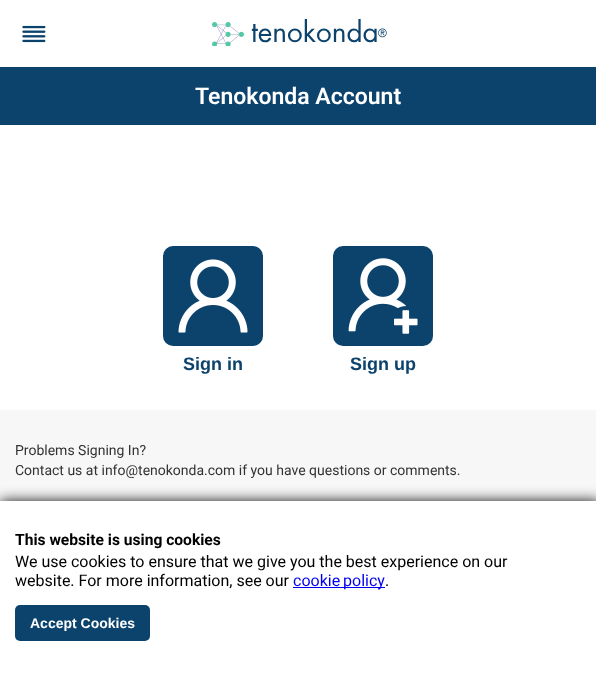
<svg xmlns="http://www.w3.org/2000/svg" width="596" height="686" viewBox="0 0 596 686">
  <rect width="100%" height="100%" fill="rgb(255,255,255)"/>
  <image x="22" y="25" width="24" height="18" href="pic1.png"/>
  <image x="212" y="22" width="32" height="24" href="pic2.png"/>
  <text x="251" y="42" font-family="Futura" font-size="28" fill="rgb(12,67,109)">tenokonda</text>
  <text x="378" y="37" font-family="Futura" font-size="11" fill="rgb(12,67,109)">®</text>
  <rect x="0" y="67" width="596" height="58" fill="rgb(12,67,109)"/>
  <text x="195" y="104" font-family="Roboto" font-size="23" font-weight="600" fill="rgb(255,255,255)">Tenokonda Account</text>
  <rect x="163" y="246" width="100" height="100" rx="10" fill="rgb(12,67,109)"/>
  <image x="178" y="259" width="70" height="74" href="pic3.png"/>
  <text x="183" y="370" font-family="Liberation Sans" font-size="18" font-weight="bold" fill="rgb(12,67,109)">Sign in</text>
  <rect x="333" y="246" width="100" height="100" rx="10" fill="rgb(12,67,109)"/>
  <image x="348" y="258" width="70" height="76" href="pic4.png"/>
  <text x="350" y="370" font-family="Liberation Sans" font-size="18" font-weight="bold" fill="rgb(12,67,109)">Sign up</text>
  <rect x="0" y="410" width="596" height="91" fill="rgb(247,247,247)"/>
  <g font-family="Roboto" font-size="14" fill="rgb(51,51,51)">
    <text>
      <tspan x="15" y="455">Problems Signing In?</tspan>
      <tspan x="15" y="475">Contact us at info@tenokonda.com if you have questions or comments.</tspan>
    </text>
  </g>
  <rect x="0" y="501" width="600" height="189" fill="rgb(18,18,18)" filter="blur(7px)"/>
  <rect x="0" y="501" width="596" height="185" fill="rgb(255,255,255)"/>
  <text x="15" y="545" font-family="Roboto" font-size="15.6" font-weight="bold" fill="rgb(0,0,0)">This website is using cookies</text>
  <g font-family="Roboto" font-size="16" fill="rgb(0,0,0)">
    <text>
      <tspan x="15" y="567">We use cookies to ensure that we give you the best experience on our</tspan>
      <tspan x="15" y="586">website. For more information, see our</tspan>
    </text>
  </g>
  <rect x="293" y="587" width="92" height="1" fill="rgb(0,0,238)"/>
  <text x="293" y="586" word-spacing="-1" font-family="Roboto" font-size="16" fill="rgb(0,0,238)">cookie policy</text>
  <text x="385" y="586" font-family="Roboto" font-size="16" fill="rgb(0,0,0)">.</text>
  <rect x="15" y="605" width="135" height="36" rx="5" fill="rgb(12,67,109)"/>
  <text x="30" y="628" font-family="Liberation Sans" font-size="14" font-weight="bold" fill="rgb(255,255,255)">Accept Cookies</text>
</svg>
